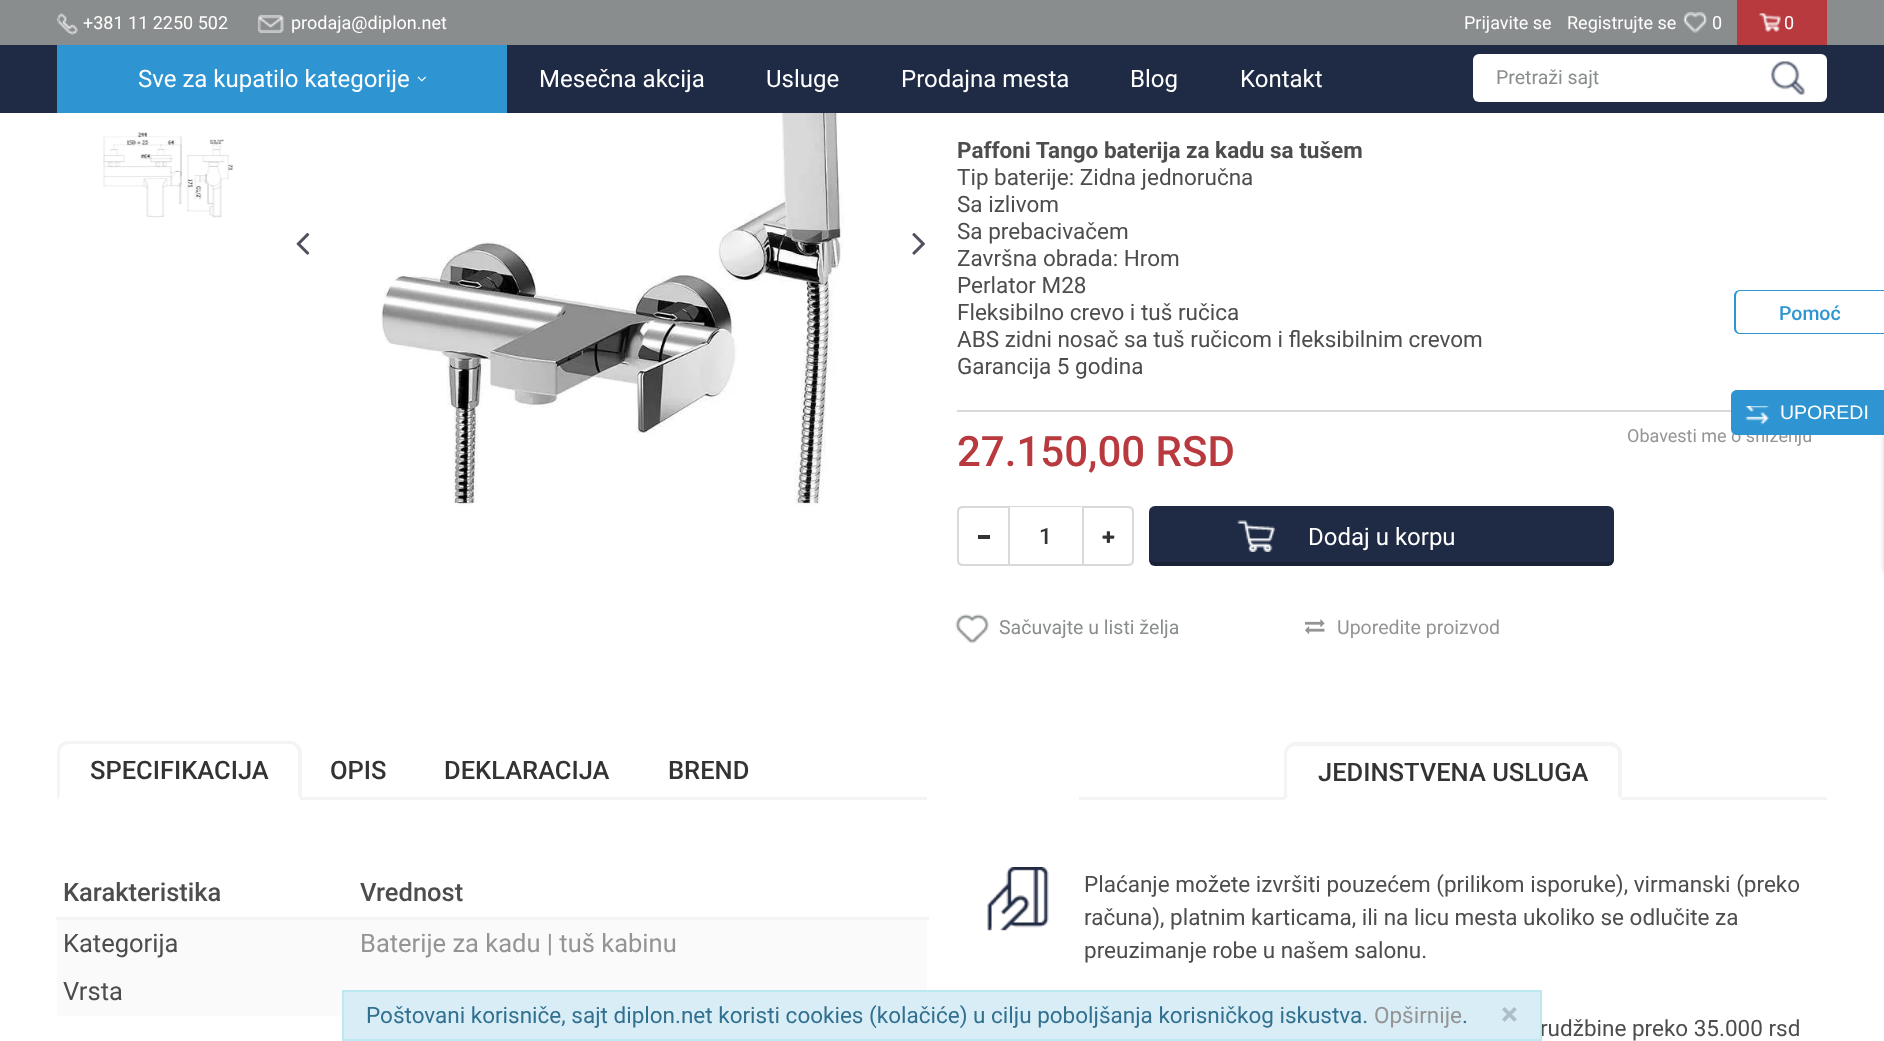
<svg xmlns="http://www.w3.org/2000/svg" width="1884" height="1041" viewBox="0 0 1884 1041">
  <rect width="100%" height="100%" fill="rgb(255,255,255)"/>
  <rect x="0" y="0" width="1884" height="45" fill="rgb(137,141,141)"/>
  <image x="57" y="13" width="21" height="22" href="pic1.png"/>
  <text x="83" y="29" font-family="Roboto" font-size="18" fill="rgb(255,255,255)">+381 11 2250 502</text>
  <image x="258" y="15" width="26" height="18" href="pic2.png"/>
  <g font-family="Roboto" font-size="18" fill="rgb(255,255,255)">
    <text x="291" y="29">prodaja@diplon.net</text>
    <text x="1464" y="29">Prijavite se</text>
    <text x="1567" y="29">Registrujte se</text>
  </g>
  <image x="1683" y="12" width="25" height="21" href="pic3.png"/>
  <text x="1712" y="29" font-family="Roboto" font-size="18" fill="rgb(255,255,255)">0</text>
  <rect x="1737" y="0" width="90" height="45" fill="rgb(185,58,62)"/>
  <image x="1759" y="13" width="22" height="19" href="pic4.png"/>
  <text x="1784" y="29" font-family="Roboto" font-size="18" fill="rgb(255,255,255)">0</text>
  <rect x="0" y="45" width="1884" height="68" fill="rgb(31,43,69)"/>
  <rect x="57" y="45" width="450" height="68" fill="rgb(46,149,210)"/>
  <text x="138" y="87" font-family="Roboto" font-size="24" fill="rgb(255,255,255)">Sve za kupatilo kategorije</text>
  <image x="417" y="76" width="9" height="6" href="pic5.png"/>
  <g font-family="Roboto" font-size="24" fill="rgb(255,255,255)">
    <text x="539" y="87">Mesečna akcija</text>
    <text x="766" y="87">Usluge</text>
    <text x="901" y="87">Prodajna mesta</text>
    <text x="1130" y="87">Blog</text>
    <text x="1240" y="87">Kontakt</text>
  </g>
  <rect x="1473" y="54" width="354" height="48" rx="6" fill="rgb(255,255,255)"/>
  <text x="1496" y="84" font-family="Roboto" font-size="19.5" fill="rgb(137,141,141)">Pretraži sajt</text>
  <image x="1771" y="61" width="34" height="34" href="pic6.png"/>
  <image x="103" y="132" width="130" height="86" href="pic7.png"/>
  <image x="381" y="113" width="463" height="393" href="pic8.png"/>
  <image x="296" y="232" width="14" height="23" href="pic9.png"/>
  <image x="912" y="232" width="13" height="23" href="pic10.png"/>
  <rect x="957" y="410" width="774" height="2" fill="rgb(217,217,217)"/>
  <text x="957" y="158" font-family="Roboto" font-size="22.5" font-weight="bold" fill="rgb(77,77,77)">Paffoni Tango baterija za kadu sa tušem</text>
  <g font-family="Roboto" font-size="22.5" fill="rgb(77,77,77)">
    <text>
      <tspan x="957" y="185">Tip baterije: Zidna jednoručna</tspan>
      <tspan x="957" y="212">Sa izlivom</tspan>
      <tspan x="957" y="239">Sa prebacivačem</tspan>
      <tspan x="957" y="266">Završna obrada: Hrom</tspan>
      <tspan x="957" y="293">Perlator M28</tspan>
      <tspan x="957" y="320">Fleksibilno crevo i tuš ručica</tspan>
      <tspan x="957" y="347">ABS zidni nosač sa tuš ručicom i fleksibilnim crevom</tspan>
      <tspan x="957" y="374">Garancija 5 godina</tspan>
    </text>
  </g>
  <text x="957" y="466" font-family="Roboto" font-size="42" font-weight="500" fill="rgb(185,58,62)">27.150,00 RSD</text>
  <text x="1627" y="442" font-family="Roboto" font-size="18" fill="rgb(148,148,148)">Obavesti me o sniženju</text>
  <path d="M963 507H1009V565H963C960 565 958 563 958 560V512C958 509 960 507 963 507Z" fill="none" stroke="rgb(217,217,217)" stroke-width="2"/>
  <rect x="978" y="535" width="12" height="4" fill="rgb(51,51,51)"/>
  <rect x="1010" y="506" width="72" height="1" fill="rgb(217,217,217)"/>
  <rect x="1010" y="564" width="72" height="2" fill="rgb(217,217,217)"/>
  <text x="1039" y="544" font-family="Roboto" font-size="22.5" font-weight="500" fill="rgb(51,51,51)">1</text>
  <path d="M1083 507H1128C1131 507 1133 509 1133 512V560C1133 563 1131 565 1128 565H1083Z" fill="none" stroke="rgb(217,217,217)" stroke-width="2"/>
  <image x="1102" y="531" width="13" height="12" href="pic11.png"/>
  <rect x="1149" y="506" width="465" height="60" rx="6" fill="rgb(31,42,68)"/>
  <path d="M1149 556V560C1149 563 1152 566 1155 566H1608C1611 566 1614 563 1614 560V556C1614 560 1611 562 1608 562H1155C1152 562 1149 560 1149 556Z" fill="rgba(0,0,0,0.2)"/>
  <image x="1237" y="520" width="38" height="32" href="pic12.png"/>
  <text x="1308" y="545" font-family="Roboto" font-size="24" fill="rgb(255,255,255)">Dodaj u korpu</text>
  <image x="955" y="614" width="34" height="29" href="pic13.png"/>
  <text x="999" y="634" font-family="Roboto" font-size="19.5" fill="rgb(137,141,141)">Sačuvajte u listi želja</text>
  <image x="1305" y="619" width="20" height="15" href="pic14.png"/>
  <text x="1337" y="634" font-family="Roboto" font-size="19.5" fill="rgb(148,148,148)">Uporedite proizvod</text>
  <path d="M1740 290H1884V334H1740C1737 334 1734 332 1734 328V296C1734 292 1737 290 1740 290ZM1740 291H1884V333H1740C1738 333 1736 331 1736 328V296C1736 293 1738 291 1740 291Z" fill="rgb(46,149,210)" fill-rule="evenodd"/>
  <text x="1779" y="320" font-family="Roboto" font-size="19.5" font-weight="500" fill="rgb(46,149,210)">Pomoć</text>
  <path d="M1737 390H1884V435H1737C1733.5 435 1731 432.5 1731 429V396C1731 392.5 1733.5 390 1737 390Z" fill="rgb(46,149,210)"/>
  <image x="1745" y="406" width="24" height="19" href="pic15.png"/>
  <text x="1780" y="419" font-family="Liberation Sans" font-size="19.5" fill="rgb(255,255,255)">UPOREDI</text>
  <rect x="1884" y="435" width="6" height="137" fill="rgba(0,0,0,0.2)" filter="blur(2px)"/>
  <rect x="57" y="797" width="870" height="3" fill="rgb(244,244,244)"/>
  <path d="M69 741C66 741 62 742 60 744L63 747C64 745 66 744 69 744H290C292 744 294 745 296 747L298 744C296 742 293 741 290 741Z" fill="rgb(244,244,244)"/>
  <path d="M298 744C300 746 301 748 302 750V800L298 796V753C298 751 297 748 296 747Z" fill="rgb(244,244,244)"/>
  <path d="M302 800L298 796H60L57 800Z" fill="rgb(255,255,255)"/>
  <path d="M57 800L60 796V753C60 750 61 748 63 747L60 744C58 746 57 750 57 753Z" fill="rgb(244,244,244)"/>
  <text x="90" y="779" font-family="Roboto" font-size="25.5" font-weight="500" fill="rgb(51,51,51)">SPECIFIKACIJA</text>
  <rect x="300" y="798" width="2" height="2" fill="rgb(244,244,244)"/>
  <g font-family="Roboto" font-size="25.5" font-weight="500" fill="rgb(51,51,51)">
    <text x="330" y="779">OPIS</text>
    <text x="444" y="779">DEKLARACIJA</text>
    <text x="668" y="779">BREND</text>
  </g>
  <text x="63" y="901" font-family="Roboto" font-size="25.5" font-weight="500" fill="rgb(77,77,77)">Karakteristika</text>
  <rect x="56" y="917" width="873" height="3" fill="rgb(244,244,244)"/>
  <text x="360" y="901" font-family="Roboto" font-size="25.5" font-weight="500" fill="rgb(77,77,77)">Vrednost</text>
  <rect x="57" y="920" width="870" height="96" fill="rgb(250,250,250)"/>
  <text x="63" y="952" font-family="Roboto" font-size="25.5" fill="rgb(77,77,77)">Kategorija</text>
  <text x="360" y="952" font-family="Roboto" font-size="25.5" fill="rgb(148,148,148)">Baterije za kadu | tuš kabinu</text>
  <text x="63" y="1000" font-family="Roboto" font-size="25.5" fill="rgb(77,77,77)">Vrsta</text>
  <rect x="1079" y="797" width="748" height="3" fill="rgb(244,244,244)"/>
  <text x="1318" y="781" font-family="Roboto" font-size="25.5" font-weight="500" fill="rgb(51,51,51)">JEDINSTVENA USLUGA</text>
  <path d="M1296 746C1294 746 1291 747 1290 748L1287 746C1289 744 1291 743 1293 742H1613C1615 743 1617 744 1618 746L1616 748C1614 747 1612 746 1610 746Z" fill="rgb(244,244,244)"/>
  <path d="M1618 746C1620 747 1621 749 1622 751V800L1618 796V754C1618 752 1617 750 1616 748Z" fill="rgb(244,244,244)"/>
  <path d="M1622 800L1618 796H1288L1284 800Z" fill="rgb(255,255,255)"/>
  <path d="M1284 800L1288 796H1287V754C1287 752 1288 750 1290 748L1287 746C1285 748 1284 751 1284 754Z" fill="rgb(244,244,244)"/>
  <image x="987" y="867" width="62" height="64" href="pic16.png"/>
  <g font-family="Roboto" font-size="22.5" fill="rgb(77,77,77)">
    <text>
      <tspan x="1084" y="892">Plaćanje možete izvršiti pouzećem (prilikom isporuke), virmanski (preko</tspan>
      <tspan x="1084" y="925">računa), platnim karticama, ili na licu mesta ukoliko se odlučite za</tspan>
      <tspan x="1084" y="958">preuzimanje robe u našem salonu.</tspan>
    </text>
    <text x="1540" y="1036">rudžbine preko 35.000 rsd</text>
  </g>
  <rect x="343" y="991" width="1198" height="49" fill="rgb(217,237,247)" stroke="rgb(188,232,241)" stroke-width="2"/>
  <text x="366" y="1023" font-family="Roboto" font-size="22.5" fill="rgb(49,112,143)">Poštovani korisniče, sajt diplon.net koristi cookies (kolačiće) u cilju poboljšanja korisničkog iskustva.</text>
  <text x="1374" y="1023" font-family="Roboto" font-size="22.5" fill="rgb(148,148,148)">Opširnije</text>
  <text x="1462" y="1023" font-family="Roboto" font-size="22.5" fill="rgb(49,112,143)">.</text>
  <text x="1501" y="1025" font-family="Roboto" font-size="32" font-weight="bold" fill="rgb(174,190,198)">×</text>
</svg>
